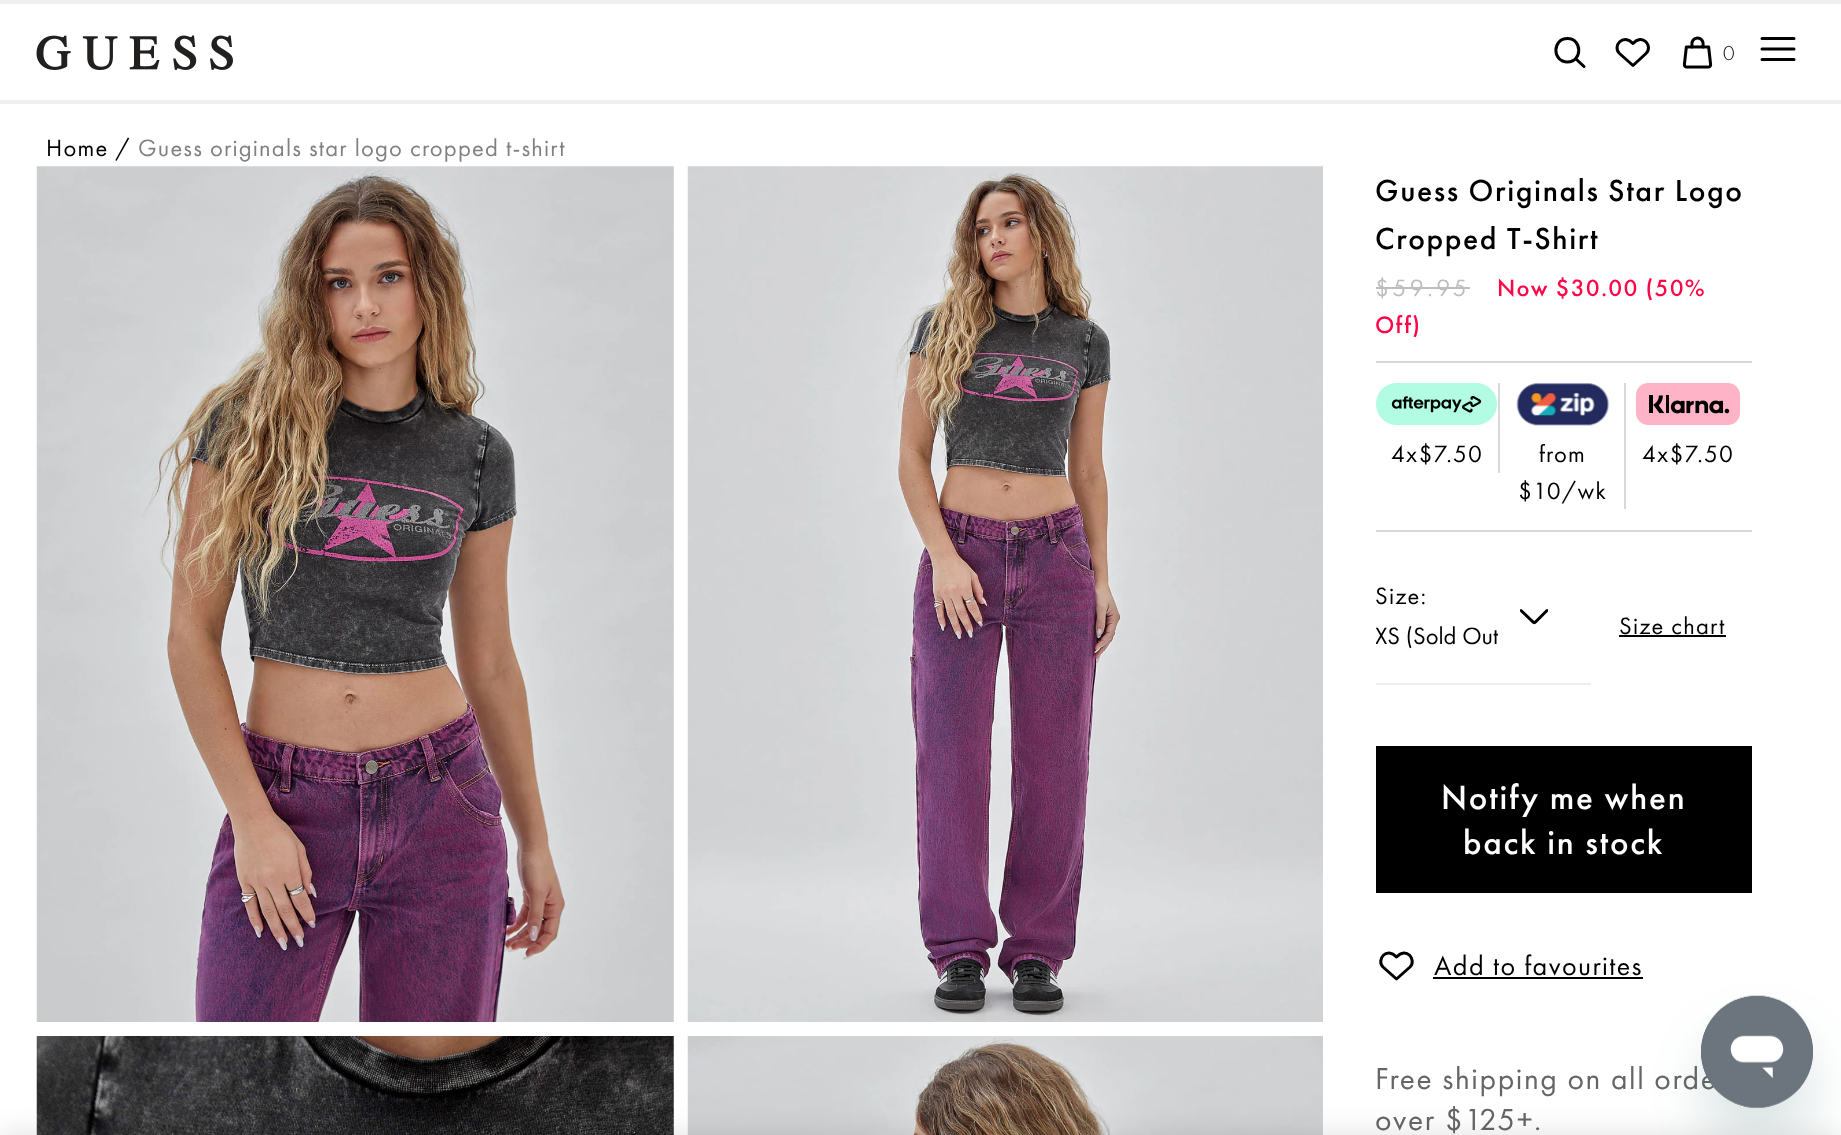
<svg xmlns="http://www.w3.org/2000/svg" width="1841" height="1135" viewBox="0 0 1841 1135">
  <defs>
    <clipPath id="clip1"><path d="M1548 602V630H1520V602Z"/></clipPath>
    <clipPath id="clip2"><rect x="1376" y="618" width="122" height="37"/></clipPath>
  </defs>
  <rect width="100%" height="100%" fill="rgb(255,255,255)"/>
  <rect x="0" y="0" width="1841" height="4" fill="rgb(238,238,238)"/>
  <rect x="0" y="100" width="1841" height="4" fill="rgb(238,238,238)"/>
  <image x="36" y="35" width="197" height="35" href="pic1.png"/>
  <path d="M1567.5 62C1582.5 62 1582.5 38.5 1567.5 38.5C1552 38.5 1552 62 1567.5 62ZM1584 66.5L1575.5 58.5" fill="none" stroke="rgb(0,0,0)" stroke-width="3" stroke-linecap="round" stroke-linejoin="round"/>
  <path d="M1633 65.5L1619.5 53.5C1612 46.5 1623 32.5 1633 43.5C1642.5 32.5 1653.5 46.5 1646 53.5Z" fill="none" stroke="rgb(0,0,0)" stroke-width="3" stroke-linecap="round" stroke-linejoin="round"/>
  <image x="1682" y="36" width="31" height="33" href="pic2.png"/>
  <text x="1723" y="60" font-family="Futura PT" font-size="21" font-weight="300" letter-spacing="1" fill="rgb(0,0,0)">0</text>
  <path d="M1762 49H1794M1762 38.5H1794M1762 59.5H1794" fill="none" stroke="rgb(0,0,0)" stroke-width="3" stroke-linecap="round" stroke-linejoin="round"/>
  <text x="46" y="156" font-family="Futura PT" font-size="24.5" letter-spacing="1.2" fill="rgb(0,0,0)">Home /</text>
  <text x="138" y="156" font-family="Futura PT" font-size="24.5" letter-spacing="1.2" fill="rgb(128,128,128)">Guess originals star logo cropped t-shirt</text>
  <image x="36" y="166" width="638" height="856" href="pic3.png"/>
  <image x="687" y="166" width="636" height="856" href="pic4.png"/>
  <image x="36" y="1036" width="638" height="99" href="pic5.png"/>
  <image x="687" y="1036" width="636" height="99" href="pic6.png"/>
  <g font-family="Futura PT" font-size="31.5" font-weight="500" letter-spacing="1.6" fill="rgb(0,0,0)">
    <text>
      <tspan x="1375" y="201">Guess Originals Star Logo</tspan>
      <tspan x="1375" y="249">Cropped T-Shirt</tspan>
    </text>
  </g>
  <text x="1375" y="296" font-family="Futura PT" font-size="24.5" letter-spacing="3.5" fill="rgb(189,189,189)">$59.95</text>
  <rect x="1376" y="287" width="94" height="2" fill="rgb(189,189,189)"/>
  <g font-family="Futura PT" font-size="24.5" font-weight="500" letter-spacing="1.2" fill="rgb(255,6,72)">
    <text x="1497" y="296">Now $30.00 (50%</text>
    <text x="1375" y="333">Off)</text>
  </g>
  <rect x="1376" y="361" width="376" height="2" fill="rgb(216,216,216)"/>
  <rect x="1376" y="530" width="376" height="2" fill="rgb(216,216,216)"/>
  <rect x="1498" y="383" width="2" height="90" fill="rgb(216,216,216)"/>
  <image x="1376" y="383" width="121" height="42" href="pic7.png"/>
  <text x="1391" y="462" font-family="Futura PT" font-size="24.5" letter-spacing="1.2" fill="rgb(0,0,0)">4x$7.50</text>
  <rect x="1624" y="383" width="2" height="126" fill="rgb(216,216,216)"/>
  <image x="1516" y="383" width="94" height="43" href="pic8.png"/>
  <g font-family="Futura PT" font-size="24.5" letter-spacing="1.2" fill="rgb(0,0,0)">
    <text x="1539" y="462">from</text>
    <text x="1518" y="499">$10/wk</text>
  </g>
  <image x="1636" y="383" width="104" height="42" href="pic9.png"/>
  <text x="1642" y="462" font-family="Futura PT" font-size="24.5" letter-spacing="1.2" fill="rgb(0,0,0)">4x$7.50</text>
  <rect x="1376" y="683" width="215" height="2" fill="rgb(238,238,238)"/>
  <text x="1375" y="604" font-family="Futura PT" font-size="24.5" letter-spacing="1.2" fill="rgb(0,0,0)">Size:</text>
  <g clip-path="url(#clip1)">
    <path d="M1547 610.5L1537 620.5C1534 623.5 1534.5 623.5 1531.5 620.5L1521 610.5" fill="none" stroke="rgb(0,0,0)" stroke-width="3" stroke-linecap="round" stroke-linejoin="round"/>
  </g>
  <g clip-path="url(#clip2)">
    <text x="1375" y="644" font-family="Futura PT" font-size="24.5" fill="rgb(0,0,0)">XS (Sold Out</text>
  </g>
  <text x="1619" y="634" font-family="Futura PT" font-size="24.5" letter-spacing="1.2" fill="rgb(0,0,0)">Size chart</text>
  <rect x="1619" y="635" width="107" height="2" fill="rgb(0,0,0)"/>
  <rect x="1376" y="746" width="376" height="147" fill="rgb(0,0,0)"/>
  <g font-family="Futura PT" font-size="35" font-weight="500" letter-spacing="1.75" fill="rgb(255,255,255)">
    <text x="1441" y="809">Notify me when</text>
    <text x="1463" y="854">back in stock</text>
  </g>
  <path d="M1396.5 979L1383 967C1376 960 1386.5 946 1396.5 957C1406.5 946 1417 960 1410 967Z" fill="none" stroke="rgb(0,0,0)" stroke-width="3" stroke-linecap="round" stroke-linejoin="round"/>
  <text x="1434" y="975" font-family="Futura PT" font-size="28" letter-spacing="1.4" fill="rgb(0,0,0)">Add to favourites</text>
  <rect x="1433" y="977" width="210" height="2" fill="rgb(0,0,0)"/>
  <g font-family="Futura PT" font-size="31.5" letter-spacing="1.6" fill="rgb(102,102,102)">
    <text>
      <tspan x="1375" y="1089">Free shipping on all orde</tspan>
      <tspan x="1375" y="1130">over $125+.</tspan>
    </text>
  </g>
  <rect x="0" y="1132" width="1841" height="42" fill="rgba(0,0,0,0.1)" filter="blur(13px)"/>
  <rect x="1701" y="1031" width="112" height="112" rx="56" fill="rgba(23,73,77,0.15)" filter="blur(26px)"/>
  <image x="1701" y="995" width="112" height="113" href="pic10.png"/>
</svg>
